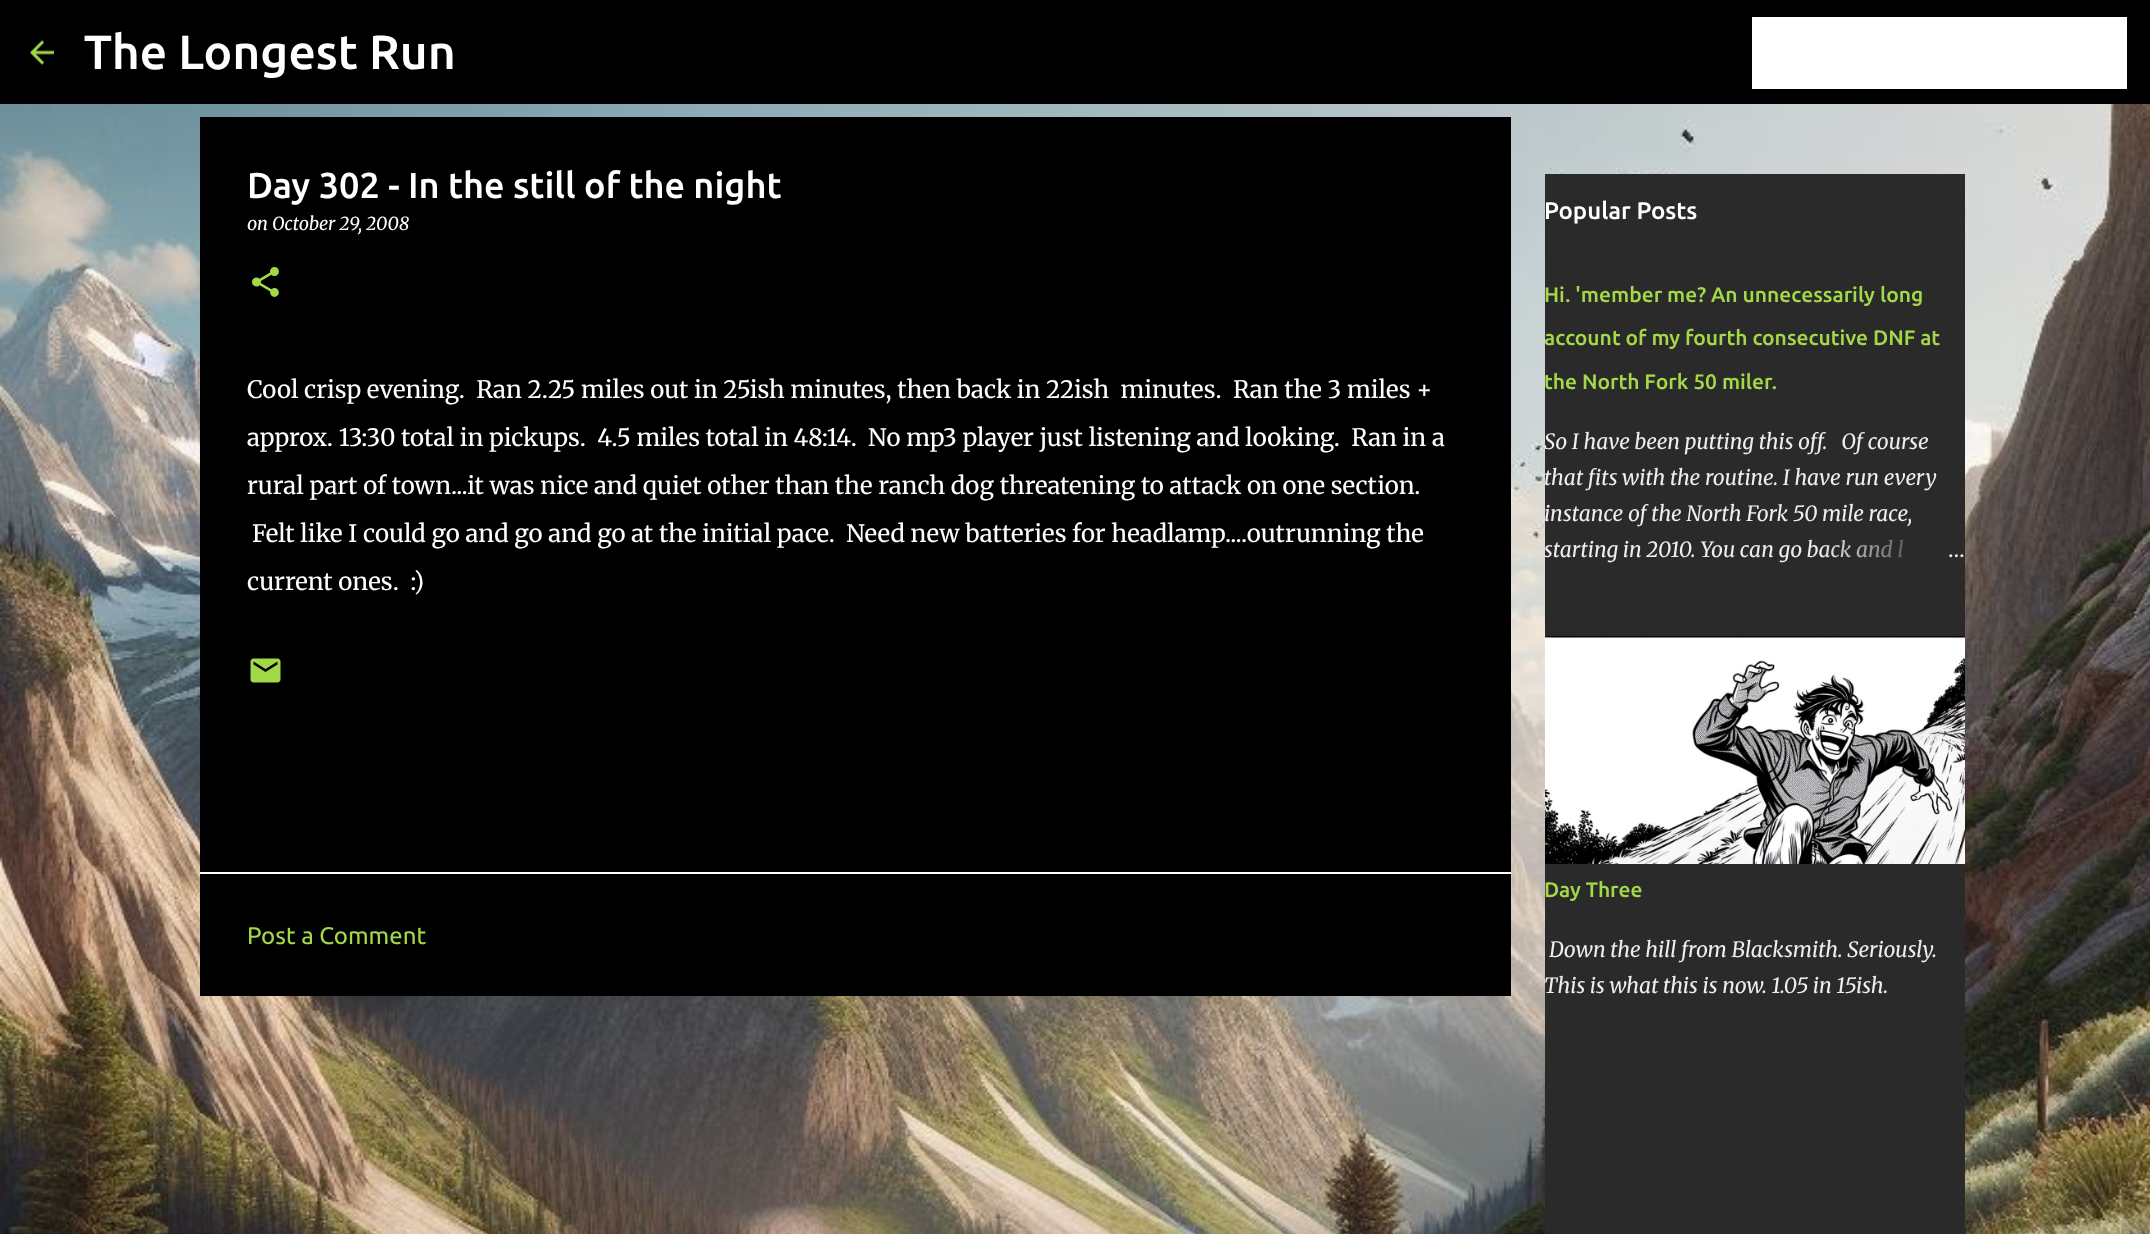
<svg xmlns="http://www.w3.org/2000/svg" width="2150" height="1234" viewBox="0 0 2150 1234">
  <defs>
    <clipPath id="clip1"><rect x="1545" y="423" width="420" height="144"/></clipPath>
    <linearGradient id="g1" gradientUnits="userSpaceOnUse" x1="1965" y1="549" x2="1821" y2="549"><stop offset="0" stop-color="rgb(42,42,42)"/><stop offset="0.2" stop-color="rgb(42,42,42)"/><stop offset="1" stop-color="rgb(42,42,42)" stop-opacity="0"/></linearGradient>
  </defs>
  <rect width="100%" height="100%" fill="rgb(255,255,255)"/>
  <image x="0" y="104" width="2150" height="1130" href="pic1.png"/>
  <rect x="0" y="0" width="2150" height="104" fill="rgb(0,0,0)"/>
  <image x="30" y="40" width="24" height="25" href="pic2.png"/>
  <text x="84" y="69" font-family="Ubuntu" font-size="48" font-weight="500" fill="rgb(255,255,255)">The Longest Run</text>
  <rect x="1752" y="17" width="375" height="72" fill="rgb(255,255,255)"/>
  <rect x="200" y="117" width="1311" height="755" fill="rgb(0,0,0)"/>
  <text x="247" y="198" font-family="Ubuntu" font-size="36" font-weight="500" fill="rgb(255,255,255)">Day 302 - In the still of the night</text>
  <text x="247" y="230" font-family="Merriweather" font-size="18" font-style="italic" fill="rgb(255,255,255)">on October 29, 2008</text>
  <image x="252" y="267" width="27" height="30" href="pic3.png"/>
  <g font-family="Merriweather" font-size="24" font-weight="300" fill="rgb(255,255,255)">
    <text x="247" y="398" xml:space="preserve">Cool crisp evening.  Ran 2.25 miles out in 25ish minutes, then back in 22ish  minutes.  Ran the 3 miles +</text>
    <text x="247" y="446" xml:space="preserve">approx. 13:30 total in pickups.  4.5 miles total in 48:14.  No mp3 player just listening and looking.  Ran in a</text>
    <text x="247" y="494">rural part of town...it was nice and quiet other than the ranch dog threatening to attack on one section.</text>
    <text x="252" y="542" xml:space="preserve">Felt like I could go and go and go at the initial pace.  Need new batteries for headlamp....outrunning the</text>
    <text x="247" y="590" xml:space="preserve">current ones.  :)</text>
  </g>
  <image x="250" y="658" width="31" height="25" href="pic4.png"/>
  <rect x="200" y="874" width="1311" height="122" fill="rgb(0,0,0)"/>
  <rect x="200" y="872" width="1311" height="2" fill="rgb(255,255,255)"/>
  <text x="247" y="944" font-family="Ubuntu" font-size="24" fill="rgb(163,216,72)">Post a Comment</text>
  <rect x="1545" y="174" width="420" height="1060" fill="rgb(42,42,42)"/>
  <text x="1544" y="219" font-family="Ubuntu" font-size="24" font-weight="500" fill="rgb(255,255,255)">Popular Posts</text>
  <g font-family="Ubuntu" font-size="21" font-weight="500" fill="rgb(163,216,72)">
    <text x="1544" y="302">Hi. 'member me? An unnecessarily long</text>
    <text x="1544" y="345">account of my fourth consecutive DNF at</text>
    <text x="1544" y="389">the North Fork 50 miler.</text>
  </g>
  <g clip-path="url(#clip1)">
    <text x="1544" y="449" font-family="Merriweather" font-size="21" font-style="italic" fill="rgb(238,238,238)" xml:space="preserve">So I have been putting this off.   Of course</text>
  </g>
  <g font-family="Merriweather" font-size="21" font-style="italic" fill="rgb(238,238,238)">
    <text>
      <tspan x="1544" y="485">that fits with the routine. I have run every</tspan>
      <tspan x="1544" y="521">instance of the North Fork 50 mile race,</tspan>
      <tspan x="1544" y="557">starting in 2010. You can go back and l</tspan>
    </text>
  </g>
  <rect x="1823" y="539" width="81" height="19" fill="url(#g1)"/>
  <text x="1948" y="557" font-family="Merriweather" font-size="21" font-weight="300" fill="rgb(238,238,238)">…</text>
  <image x="1545" y="636" width="420" height="228" href="pic5.png"/>
  <text x="1544" y="897" font-family="Ubuntu" font-size="21" font-weight="500" fill="rgb(163,216,72)">Day Three</text>
  <g font-family="Merriweather" font-size="21" font-style="italic" fill="rgb(238,238,238)">
    <text x="1549" y="957">Down the hill from Blacksmith. Seriously.</text>
    <text x="1544" y="993">This is what this is now. 1.05 in 15ish.</text>
  </g>
</svg>
